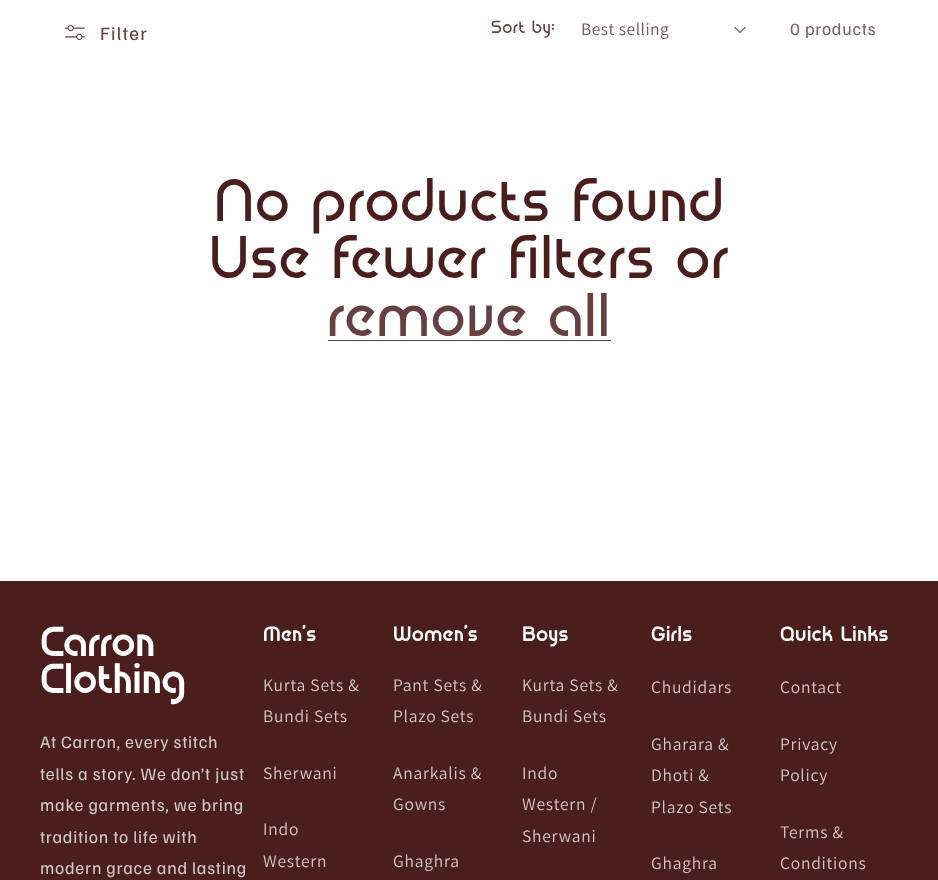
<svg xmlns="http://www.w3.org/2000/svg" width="938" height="880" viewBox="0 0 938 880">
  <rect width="100%" height="100%" fill="rgb(255,255,255)"/>
  <image x="65" y="25" width="20" height="15" href="pic1.png"/>
  <text x="100" y="40" font-family="Familjen Grotesk" font-size="19" letter-spacing="1.25" fill="rgb(102,64,64)">Filter</text>
  <text x="491" y="33" font-family="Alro" font-size="17.5" letter-spacing="0.5" fill="rgb(102,64,64)">Sort by:</text>
  <text x="581" y="35" font-family="Assistant" font-size="17.5" letter-spacing="0.5" fill="rgb(120,86,86)">Best selling</text>
  <image x="734" y="27" width="12" height="6" href="pic2.png"/>
  <text x="790" y="35" font-family="Familjen Grotesk" font-size="17.5" letter-spacing="0.75" fill="rgb(129,98,98)">0 products</text>
  <g font-family="Alro" font-size="60" letter-spacing="0.75" fill="rgb(75,30,30)">
    <text x="214" y="221">No products found</text>
    <text x="209" y="278">Use fewer filters or</text>
  </g>
  <text x="327" y="336" font-family="Alro" font-size="60" letter-spacing="0.75" fill="rgb(102,64,64)">remove all</text>
  <rect x="328" y="340" width="283" height="1" fill="rgb(102,64,64)"/>
  <rect x="0" y="581" width="938" height="299" fill="rgb(75,30,30)"/>
  <g font-family="Alro" font-size="40" font-weight="bold" letter-spacing="0.75" fill="rgb(255,255,255)">
    <text>
      <tspan x="40" y="656">Carron</tspan>
      <tspan x="40" y="693">Clothing</tspan>
    </text>
  </g>
  <g font-family="Familjen Grotesk" font-size="17.5" letter-spacing="0.75" fill="rgb(210,199,199)">
    <text>
      <tspan x="40" y="748">At Carron, every stitch</tspan>
      <tspan x="40" y="780">tells a story. We don’t just</tspan>
      <tspan x="40" y="811">make garments, we bring</tspan>
      <tspan x="40" y="843">tradition to life with</tspan>
      <tspan x="40" y="874">modern grace and lasting</tspan>
    </text>
  </g>
  <text x="263" y="641" font-family="Alro" font-size="20" font-weight="bold" letter-spacing="0.75" fill="rgb(255,255,255)">Men’s</text>
  <g font-family="Assistant" font-size="17.5" letter-spacing="0.75" fill="rgb(210,199,199)">
    <text>
      <tspan x="263" y="691">Kurta Sets &amp;</tspan>
      <tspan x="263" y="722">Bundi Sets</tspan>
    </text>
    <text x="263" y="779">Sherwani</text>
    <text>
      <tspan x="263" y="835">Indo</tspan>
      <tspan x="263" y="867">Western</tspan>
    </text>
  </g>
  <text x="393" y="641" font-family="Alro" font-size="20" font-weight="bold" letter-spacing="0.75" fill="rgb(255,255,255)">Women’s</text>
  <g font-family="Assistant" font-size="17.5" letter-spacing="0.75" fill="rgb(210,199,199)">
    <text>
      <tspan x="393" y="691">Pant Sets &amp;</tspan>
      <tspan x="393" y="722">Plazo Sets</tspan>
    </text>
    <text>
      <tspan x="393" y="779">Anarkalis &amp;</tspan>
      <tspan x="393" y="810">Gowns</tspan>
    </text>
    <text x="393" y="867">Ghaghra</text>
  </g>
  <text x="522" y="641" font-family="Alro" font-size="20" font-weight="bold" letter-spacing="0.75" fill="rgb(255,255,255)">Boys</text>
  <g font-family="Assistant" font-size="17.5" letter-spacing="0.75" fill="rgb(210,199,199)">
    <text>
      <tspan x="522" y="691">Kurta Sets &amp;</tspan>
      <tspan x="522" y="722">Bundi Sets</tspan>
    </text>
    <text>
      <tspan x="522" y="779">Indo</tspan>
      <tspan x="522" y="810">Western /</tspan>
      <tspan x="522" y="842">Sherwani</tspan>
    </text>
  </g>
  <text x="651" y="641" font-family="Alro" font-size="20" font-weight="bold" letter-spacing="0.75" fill="rgb(255,255,255)">Girls</text>
  <g font-family="Assistant" font-size="17.5" letter-spacing="0.75" fill="rgb(210,199,199)">
    <text x="651" y="693">Chudidars</text>
    <text>
      <tspan x="651" y="750">Gharara &amp;</tspan>
      <tspan x="651" y="781">Dhoti &amp;</tspan>
      <tspan x="651" y="813">Plazo Sets</tspan>
    </text>
    <text x="651" y="869">Ghaghra</text>
  </g>
  <text x="780" y="641" font-family="Alro" font-size="20" font-weight="bold" letter-spacing="0.75" fill="rgb(255,255,255)">Quick Links</text>
  <g font-family="Assistant" font-size="17.5" letter-spacing="0.75" fill="rgb(210,199,199)">
    <text x="780" y="693">Contact</text>
    <text>
      <tspan x="780" y="750">Privacy</tspan>
      <tspan x="780" y="781">Policy</tspan>
    </text>
    <text>
      <tspan x="780" y="838">Terms &amp;</tspan>
      <tspan x="780" y="869">Conditions</tspan>
    </text>
  </g>
</svg>
